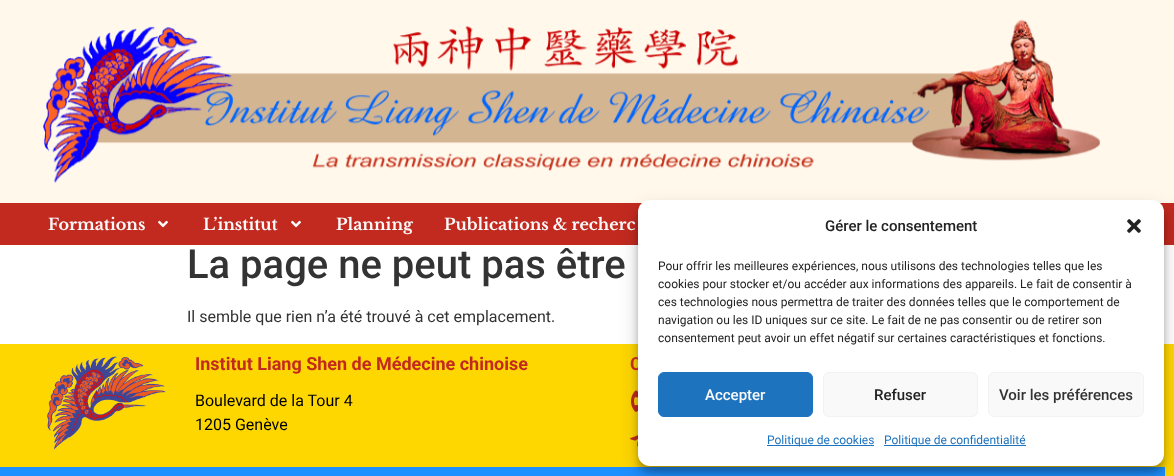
<svg xmlns="http://www.w3.org/2000/svg" width="1174" height="476" viewBox="0 0 1174 476">
  <rect width="100%" height="100%" fill="rgb(255,255,255)"/>
  <rect x="0" y="0" width="1174" height="203" fill="rgb(255,248,235)"/>
  <image x="43" y="19" width="1057" height="164" href="pic1.png"/>
  <rect x="0" y="203" width="1174" height="42" fill="rgb(194,42,32)"/>
  <text x="48" y="230" font-family="Libre Baskerville" font-size="16" font-weight="bold" fill="rgb(250,250,250)">Formations</text>
  <image x="158" y="220" width="10" height="8" href="pic2.png"/>
  <text x="203" y="230" font-family="Libre Baskerville" font-size="16" font-weight="bold" fill="rgb(250,250,250)">L’institut</text>
  <image x="291" y="220" width="10" height="8" href="pic2.png"/>
  <g font-family="Libre Baskerville" font-size="16" font-weight="bold" fill="rgb(250,250,250)">
    <text x="336" y="230">Planning</text>
    <text x="444" y="230">Publications &amp; recherc</text>
  </g>
  <rect x="0" y="344" width="1174" height="132" fill="rgb(255,215,0)"/>
  <image x="631" y="390" width="7" height="22" href="pic5.png"/>
  <image x="630" y="435" width="8" height="12" href="pic6.png"/>
  <rect x="0" y="467" width="1165" height="9" fill="rgb(30,144,255)"/>
  <rect x="638" y="206" width="526" height="266" rx="12" fill="rgba(0,0,0,0.23)" filter="blur(3px)"/>
  <rect x="638" y="210" width="526" height="266" rx="12" fill="rgba(0,0,0,0.19)" filter="blur(10px)"/>
  <text x="630" y="370" font-family="Roboto" font-size="18" font-weight="bold" fill="rgb(194,42,32)">C</text>
  <rect x="638" y="200" width="526" height="266" rx="12" fill="rgb(255,255,255)"/>
  <text x="825" y="231" font-family="Roboto" font-size="15" font-weight="500" fill="rgb(34,34,34)">Gérer le consentement</text>
  <image x="1127" y="219" width="14" height="14" href="pic3.png"/>
  <g font-family="Roboto" font-size="12" fill="rgb(34,34,34)">
    <text>
      <tspan x="658" y="270">Pour offrir les meilleures expériences, nous utilisons des technologies telles que les</tspan>
      <tspan x="658" y="288">cookies pour stocker et/ou accéder aux informations des appareils. Le fait de consentir à</tspan>
      <tspan x="658" y="306">ces technologies nous permettra de traiter des données telles que le comportement de</tspan>
      <tspan x="658" y="324">navigation ou les ID uniques sur ce site. Le fait de ne pas consentir ou de retirer son</tspan>
      <tspan x="658" y="342">consentement peut avoir un effet négatif sur certaines caractéristiques et fonctions.</tspan>
    </text>
  </g>
  <rect x="658.5" y="372.5" width="154" height="44" rx="5.5" fill="rgb(30,115,190)" stroke="rgb(30,115,190)"/>
  <text x="705" y="400" font-family="Roboto" font-size="15" font-weight="500" fill="rgb(250,250,250)">Accepter</text>
  <rect x="823.5" y="372.5" width="154" height="44" rx="5.5" fill="rgb(249,249,249)" stroke="rgb(242,242,242)"/>
  <text x="874" y="400" font-family="Roboto" font-size="15" font-weight="500" fill="rgb(34,34,34)">Refuser</text>
  <rect x="988.5" y="372.5" width="155" height="44" rx="5.5" fill="rgb(249,249,249)" stroke="rgb(242,242,242)"/>
  <text x="999" y="400" font-family="Roboto" font-size="15" font-weight="500" fill="rgb(51,51,51)">Voir les préférences</text>
  <rect x="767" y="445" width="107" height="1" fill="rgb(30,115,190)"/>
  <text x="767" y="444" font-family="Roboto" font-size="12" fill="rgb(30,115,190)">Politique de cookies</text>
  <rect x="884" y="445" width="142" height="1" fill="rgb(30,115,190)"/>
  <text x="884" y="444" font-family="Roboto" font-size="12" fill="rgb(30,115,190)">Politique de confidentialité</text>
  <text x="187" y="278" font-family="Roboto" font-size="40" font-weight="500" fill="rgb(51,51,51)">La page ne peut pas être</text>
  <text x="187" y="322" font-family="Roboto" font-size="16" fill="rgb(51,51,51)">Il semble que rien n’a été trouvé à cet emplacement.</text>
  <image x="47" y="356" width="119" height="94" href="pic4.png"/>
  <text x="195" y="370" font-family="Roboto" font-size="18" font-weight="bold" fill="rgb(194,42,32)">Institut Liang Shen de Médecine chinoise</text>
  <g font-family="Roboto" font-size="16" fill="rgb(0,0,0)">
    <text>
      <tspan x="195" y="406">Boulevard de la Tour 4</tspan>
      <tspan x="195" y="430">1205 Genève</tspan>
    </text>
  </g>
</svg>
